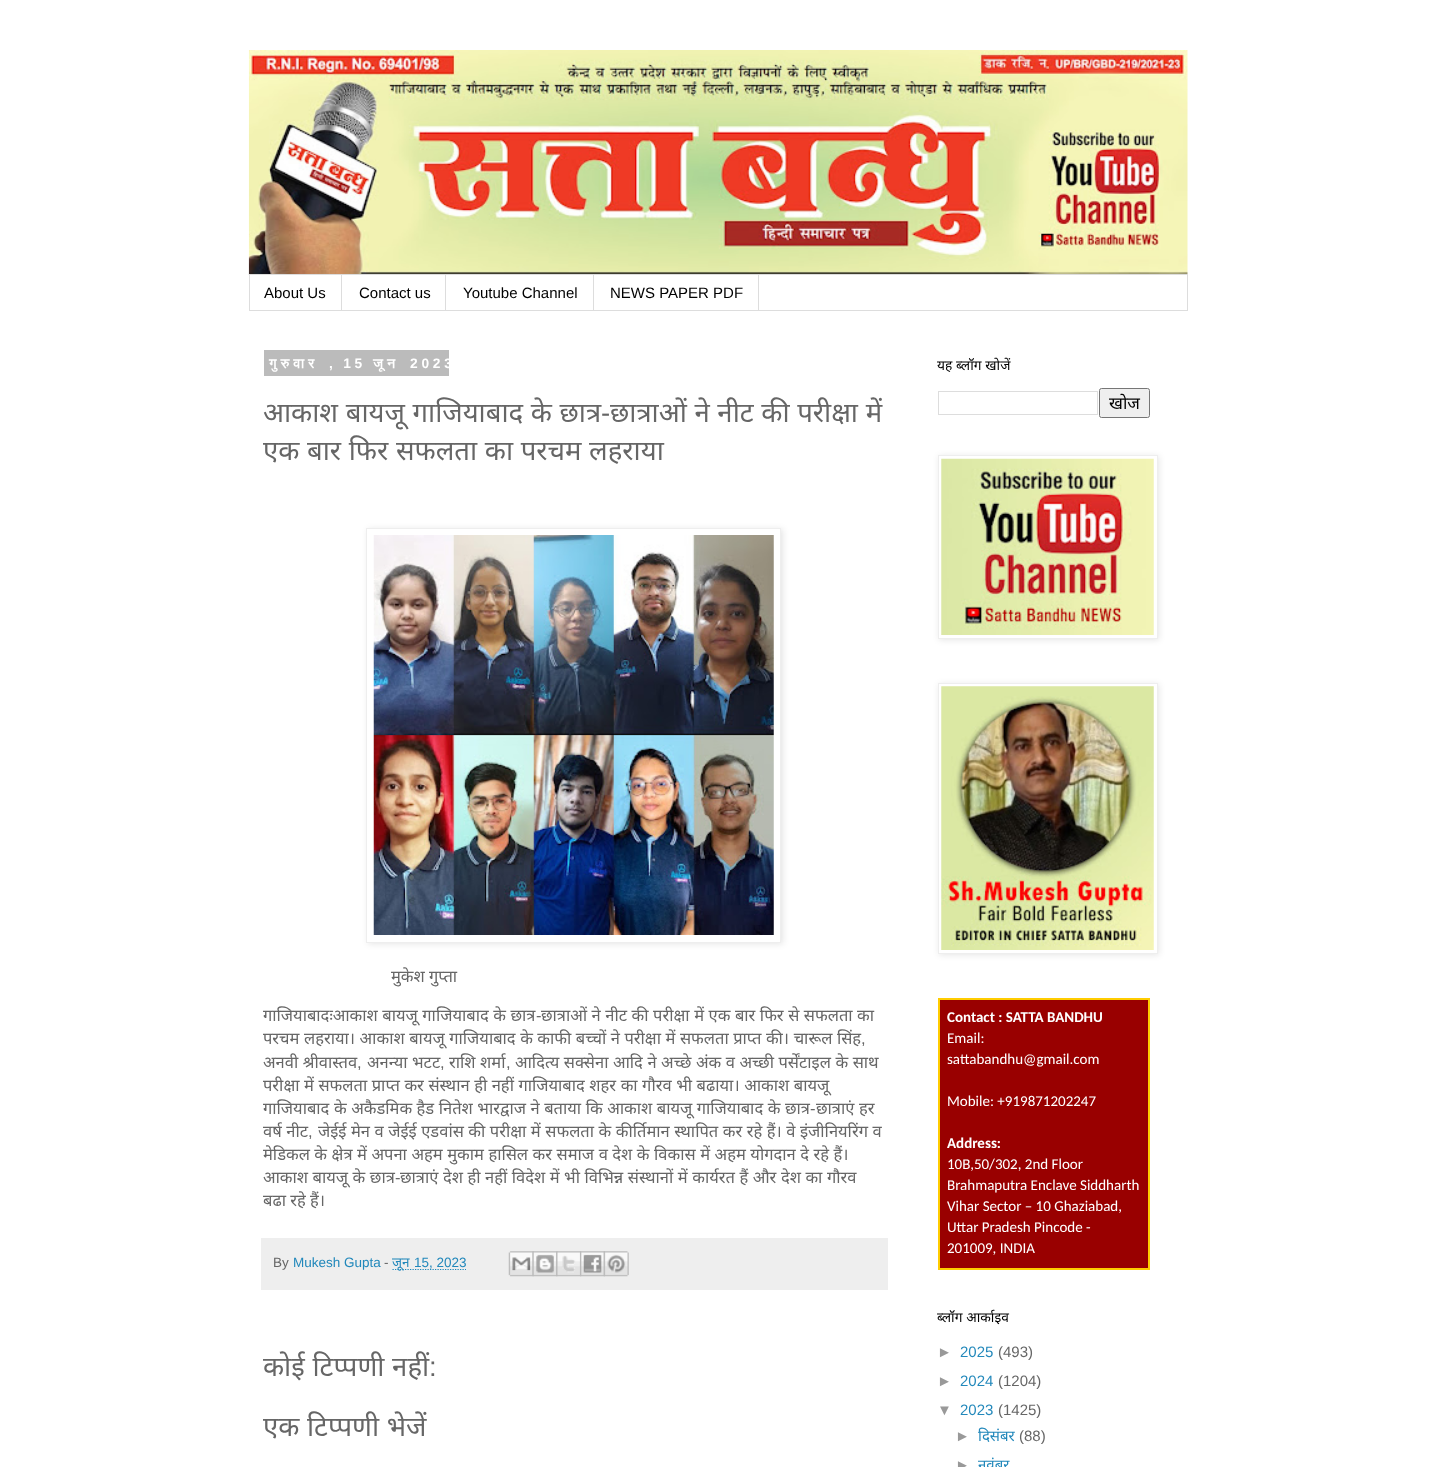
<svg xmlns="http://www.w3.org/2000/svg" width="1434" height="1467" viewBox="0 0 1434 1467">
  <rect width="100%" height="100%" fill="rgb(255,255,255)"/>
  <image x="248" y="50" width="940" height="225" href="pic1.png"/>
  <rect x="249.5" y="274.5" width="938" height="36" fill="none" stroke="rgb(221,221,221)"/>
  <rect x="341" y="275" width="1" height="35" fill="rgb(221,221,221)"/>
  <text x="264" y="298" font-family="Liberation Sans" font-size="15" fill="rgb(0,0,0)">About Us</text>
  <rect x="445" y="275" width="1" height="35" fill="rgb(221,221,221)"/>
  <text x="359" y="298" font-family="Liberation Sans" font-size="15" fill="rgb(0,0,0)">Contact us</text>
  <rect x="593" y="275" width="1" height="35" fill="rgb(221,221,221)"/>
  <text x="463" y="298" font-family="Liberation Sans" font-size="15" fill="rgb(0,0,0)">Youtube Channel</text>
  <rect x="758" y="275" width="1" height="35" fill="rgb(221,221,221)"/>
  <text x="610" y="298" font-family="Liberation Sans" font-size="15" fill="rgb(0,0,0)">NEWS PAPER PDF</text>
  <rect x="264" y="350" width="185" height="26" fill="rgb(187,187,187)"/>
  <text x="269" y="368" font-family="FreeSans" font-size="13.75" font-weight="600" letter-spacing="3.75" fill="rgb(255,255,255)">गुरुवार</text>
  <text x="329" y="368" word-spacing="-1" font-family="Liberation Sans" font-size="13.75" font-weight="bold" letter-spacing="3.75" fill="rgb(255,255,255)">, 15</text>
  <text x="373" y="368" font-family="FreeSans" font-size="13.75" font-weight="600" letter-spacing="3.75" fill="rgb(255,255,255)">जून</text>
  <text x="410" y="368" font-family="Liberation Sans" font-size="13.75" font-weight="bold" letter-spacing="3.75" fill="rgb(255,255,255)">2023</text>
  <text x="263" y="422" word-spacing="0.5" font-family="Noto Sans" font-size="27.5" fill="rgb(102,102,102)">आकाश बायजू गाजियाबाद के छात्र</text>
  <text x="601" y="422" font-family="Liberation Sans" font-size="27.5" fill="rgb(102,102,102)">-</text>
  <g font-family="Noto Sans" font-size="27.5" fill="rgb(102,102,102)">
    <text x="610" y="422" word-spacing="0.5">छात्राओं ने नीट की परीक्षा में</text>
    <text x="263" y="460" word-spacing="0.5">एक बार फिर सफलता का परचम लहराया</text>
  </g>
  <rect x="368" y="529" width="415" height="415" fill="rgba(0,0,0,0.1)" filter="blur(3px)"/>
  <rect x="366.5" y="528.5" width="414" height="414" fill="rgb(255,255,255)" stroke="rgb(238,238,238)"/>
  <image x="373" y="535" width="401" height="400" href="pic2.png"/>
  <g font-family="Noto Sans" font-size="16.5" fill="rgb(102,102,102)">
    <text x="391" y="982">मुकेश गुप्ता</text>
    <text x="263" y="1021" word-spacing="0.25">गाजियाबादःआकाश बायजू गाजियाबाद के छात्र</text>
  </g>
  <text x="536" y="1021" font-family="Liberation Sans" font-size="16.5" fill="rgb(102,102,102)">-</text>
  <g font-family="Noto Sans" font-size="16.5" fill="rgb(102,102,102)">
    <text x="541" y="1021" word-spacing="0.25">छात्राओं ने नीट की परीक्षा में एक बार फिर से सफलता का</text>
    <text x="263" y="1044" word-spacing="0.25">परचम लहराया। आकाश बायजू गाजियाबाद के काफी बच्चों ने परीक्षा में सफलता प्राप्त की। चारूल सिंह</text>
  </g>
  <text x="861" y="1044" font-family="Liberation Sans" font-size="16.5" fill="rgb(102,102,102)">,</text>
  <g font-family="Noto Sans" font-size="16.5" fill="rgb(102,102,102)">
    <text x="263" y="1068" word-spacing="0.25">अनवी श्रीवास्तव</text>
    <text x="367" y="1068" word-spacing="0.25">अनन्या भटट</text>
    <text x="449" y="1068" word-spacing="0.25">राशि शर्मा</text>
    <text x="515" y="1068" word-spacing="0.25">आदित्य सक्सेना आदि ने अच्छे अंक व अच्छी पर्सेंटाइल के साथ</text>
  </g>
  <g font-family="Liberation Sans" font-size="16.5" fill="rgb(102,102,102)">
    <text x="357" y="1068">,</text>
    <text x="440" y="1068">,</text>
    <text x="506" y="1068">,</text>
  </g>
  <g font-family="Noto Sans" font-size="16.5" fill="rgb(102,102,102)">
    <text>
      <tspan x="263" y="1091" word-spacing="0.25">परीक्षा में सफलता प्राप्त कर संस्थान ही नहीं गाजियाबाद शहर का गौरव भी बढाया। आकाश बायजू</tspan>
      <tspan x="263" y="1114" word-spacing="0.25">गाजियाबाद के अकैडमिक हैड नितेश भारद्वाज ने बताया कि आकाश बायजू गाजियाबाद के छात्र</tspan>
    </text>
  </g>
  <text x="810" y="1114" font-family="Liberation Sans" font-size="16.5" fill="rgb(102,102,102)">-</text>
  <g font-family="Noto Sans" font-size="16.5" fill="rgb(102,102,102)">
    <text x="816" y="1114" word-spacing="0.25">छात्राएं हर</text>
    <text x="263" y="1137" word-spacing="0.25">वर्ष नीट</text>
  </g>
  <text x="308" y="1137" font-family="Liberation Sans" font-size="16.5" fill="rgb(102,102,102)">,</text>
  <g font-family="Noto Sans" font-size="16.5" fill="rgb(102,102,102)">
    <text x="318" y="1137" word-spacing="0.25">जेईई मेन व जेईई एडवांस की परीक्षा में सफलता के कीर्तिमान स्थापित कर रहे हैं। वे इंजीनियरिंग व</text>
    <text>
      <tspan x="263" y="1160" word-spacing="0.25">मेडिकल के क्षेत्र में अपना अहम मुकाम हासिल कर समाज व देश के विकास में अहम योगदान दे रहे हैं।</tspan>
      <tspan x="263" y="1183" word-spacing="0.25">आकाश बायजू के छात्र</tspan>
    </text>
  </g>
  <text x="395" y="1183" font-family="Liberation Sans" font-size="16.5" fill="rgb(102,102,102)">-</text>
  <g font-family="Noto Sans" font-size="16.5" fill="rgb(102,102,102)">
    <text x="400" y="1183" word-spacing="0.25">छात्राएं देश ही नहीं विदेश में भी विभिन्न संस्थानों में कार्यरत हैं और देश का गौरव</text>
    <text x="263" y="1206">बढा रहे हैं।</text>
  </g>
  <rect x="261" y="1238" width="627" height="52" fill="rgb(238,238,238)"/>
  <text x="273" y="1267" font-family="Liberation Sans" font-size="13.5" fill="rgb(102,102,102)">By</text>
  <text x="293" y="1267" font-family="Liberation Sans" font-size="13.5" fill="rgb(34,136,187)">Mukesh Gupta</text>
  <text x="384" y="1267" font-family="Liberation Sans" font-size="13.5" fill="rgb(102,102,102)">-</text>
  <path d="M392.5 1269.5H466" fill="none" stroke="rgb(34,136,187)" stroke-width="1.2" stroke-dasharray="1.25 1.25"/>
  <text x="392" y="1267" font-family="Noto Sans" font-size="13.5" fill="rgb(34,136,187)">जून</text>
  <text x="414" y="1267" font-family="Liberation Sans" font-size="13.5" fill="rgb(34,136,187)">15, 2023</text>
  <image x="508" y="1251" width="26" height="26" href="pic3.png"/>
  <image x="532" y="1251" width="26" height="26" href="pic4.png"/>
  <image x="556" y="1251" width="26" height="26" href="pic5.png"/>
  <image x="580" y="1251" width="25" height="26" href="pic6.png"/>
  <image x="603" y="1251" width="26" height="26" href="pic7.png"/>
  <text x="263" y="1376" word-spacing="0.5" font-family="Noto Sans" font-size="27.5" fill="rgb(102,102,102)">कोई टिप्पणी नहीं</text>
  <text x="429" y="1376" font-family="Liberation Sans" font-size="27.5" fill="rgb(102,102,102)">:</text>
  <text x="263" y="1436" word-spacing="0.5" font-family="Noto Sans" font-size="27.5" fill="rgb(102,102,102)">एक टिप्पणी भेजें</text>
  <text x="937" y="370" word-spacing="0.25" font-family="Noto Sans" font-size="13.75" fill="rgb(0,0,0)">यह ब्लॉग खोजें</text>
  <rect x="938.5" y="391.5" width="159" height="23" fill="none" stroke="rgb(221,221,221)"/>
  <rect x="1099.5" y="388.5" width="50" height="29" rx="2" fill="rgb(239,239,239)" stroke="rgb(118,118,118)"/>
  <text x="1109" y="409" font-family="Noto Sans" font-size="17" fill="rgb(0,0,0)">खोज</text>
  <rect x="939" y="456" width="220" height="184" fill="rgba(0,0,0,0.1)" filter="blur(3px)"/>
  <rect x="938.5" y="455.5" width="219" height="183" fill="rgb(255,255,255)" stroke="rgb(238,238,238)"/>
  <image x="941" y="458" width="213" height="177" href="pic8.png"/>
  <rect x="939" y="684" width="220" height="271" fill="rgba(0,0,0,0.1)" filter="blur(3px)"/>
  <rect x="938.5" y="683.5" width="219" height="270" fill="rgb(255,255,255)" stroke="rgb(238,238,238)"/>
  <image x="941" y="686" width="213" height="264" href="pic9.png"/>
  <rect x="940" y="1000" width="208" height="268" fill="rgb(153,0,0)"/>
  <rect x="938.5" y="998.5" width="211" height="271" fill="none" stroke="rgb(255,204,0)"/>
  <rect x="939.5" y="999.5" width="209" height="269" fill="none" stroke="rgb(255,204,0)"/>
  <text x="947" y="1022" font-family="Carlito" font-size="15" font-weight="bold" fill="rgb(255,255,255)">Contact : SATTA BANDHU</text>
  <g font-family="Carlito" font-size="15" fill="rgb(255,255,255)">
    <text>
      <tspan x="947" y="1043">Email:</tspan>
      <tspan x="947" y="1064">sattabandhu@gmail.com</tspan>
    </text>
    <text x="947" y="1106">Mobile: +919871202247</text>
  </g>
  <text x="947" y="1148" font-family="Carlito" font-size="15" font-weight="bold" fill="rgb(255,255,255)">Address:</text>
  <g font-family="Carlito" font-size="15" fill="rgb(255,255,255)">
    <text>
      <tspan x="947" y="1169">10B,50/302, 2nd Floor</tspan>
      <tspan x="947" y="1190">Brahmaputra Enclave Siddharth</tspan>
      <tspan x="947" y="1211">Vihar Sector – 10 Ghaziabad,</tspan>
      <tspan x="947" y="1232">Uttar Pradesh Pincode -</tspan>
      <tspan x="947" y="1253">201009, INDIA</tspan>
    </text>
  </g>
  <text x="937" y="1322" word-spacing="0.25" font-family="Noto Sans" font-size="13.75" fill="rgb(0,0,0)">ब्लॉग आर्काइव</text>
  <text x="937" y="1357" font-family="Liberation Sans" font-size="15" fill="rgb(153,153,153)">►</text>
  <text x="960" y="1357" font-family="Liberation Sans" font-size="15" fill="rgb(34,136,187)">2025</text>
  <text x="998" y="1357" font-family="Liberation Sans" font-size="15" fill="rgb(102,102,102)">(493)</text>
  <text x="937" y="1386" font-family="Liberation Sans" font-size="15" fill="rgb(153,153,153)">►</text>
  <text x="960" y="1386" font-family="Liberation Sans" font-size="15" fill="rgb(34,136,187)">2024</text>
  <text x="998" y="1386" font-family="Liberation Sans" font-size="15" fill="rgb(102,102,102)">(1204)</text>
  <text x="937" y="1415" font-family="Liberation Sans" font-size="15" fill="rgb(153,153,153)">▼</text>
  <text x="960" y="1415" font-family="Liberation Sans" font-size="15" fill="rgb(34,136,187)">2023</text>
  <text x="998" y="1415" font-family="Liberation Sans" font-size="15" fill="rgb(102,102,102)">(1425)</text>
  <text x="955" y="1441" font-family="Liberation Sans" font-size="15" fill="rgb(153,153,153)">►</text>
  <text x="978" y="1441" font-family="Noto Sans" font-size="15" fill="rgb(34,136,187)">दिसंबर</text>
  <text x="1019" y="1441" font-family="Liberation Sans" font-size="15" fill="rgb(102,102,102)">(88)</text>
  <text x="955" y="1470" font-family="Liberation Sans" font-size="15" fill="rgb(153,153,153)">►</text>
  <text x="978" y="1470" font-family="Noto Sans" font-size="15" fill="rgb(34,136,187)">नवंबर</text>
</svg>
